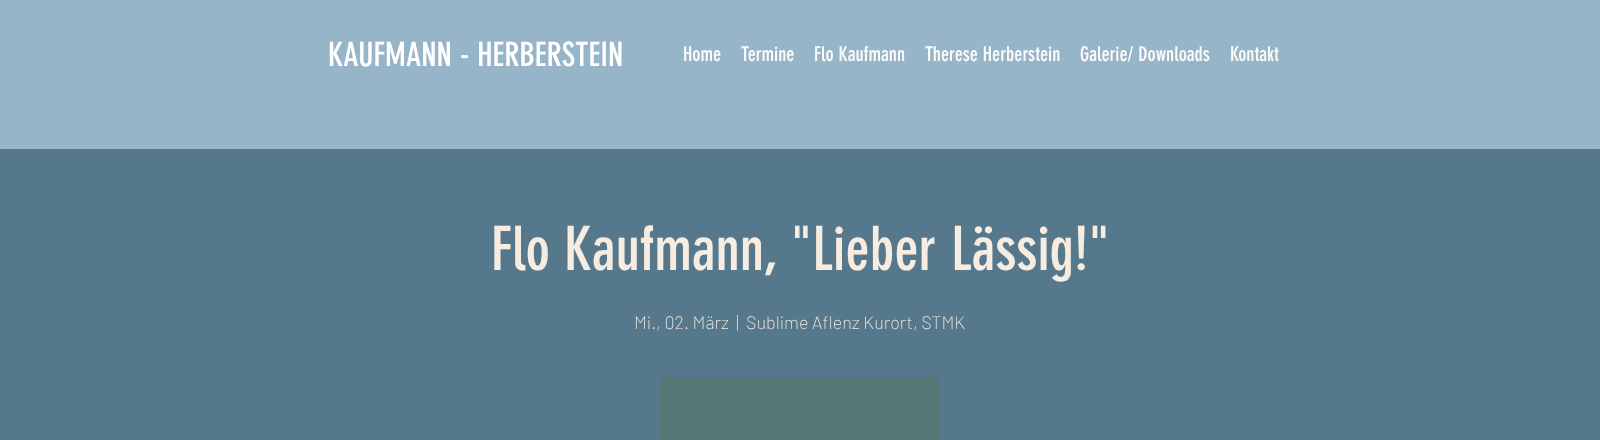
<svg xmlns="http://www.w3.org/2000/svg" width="1600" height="440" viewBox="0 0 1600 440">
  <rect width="100%" height="100%" fill="rgb(86,120,141)"/>
  <rect x="0" y="0" width="1600" height="149" fill="rgb(151,181,201)"/>
  <text x="328" y="66" font-family="'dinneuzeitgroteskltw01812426'" font-size="33" fill="rgb(255,255,255)">KAUFMANN - HERBERSTEIN</text>
  <g font-family="'dinneuzeitgroteskltw01812426'" font-size="20" fill="rgb(253,251,249)">
    <text x="683" y="61">Home</text>
    <text x="741" y="61">Termine</text>
    <text x="814" y="61">Flo Kaufmann</text>
    <text x="925" y="61">Therese Herberstein</text>
    <text x="1080" y="61">Galerie/ Downloads</text>
    <text x="1230" y="61">Kontakt</text>
  </g>
  <text x="491" y="270" font-family="'dinneuzeitgroteskltw01812426'" font-size="60" fill="rgb(247,236,224)">Flo Kaufmann, "Lieber Lässig!"</text>
  <g font-family="Barlow" font-size="18" font-weight="200" fill="rgb(247,236,224)">
    <text x="634" y="329">Mi., 02. März</text>
    <text x="736" y="329">|</text>
    <text x="746" y="329">Sublime Aflenz Kurort, STMK</text>
  </g>
  <rect x="660" y="377" width="280" height="63" fill="rgb(84,120,115)"/>
</svg>
